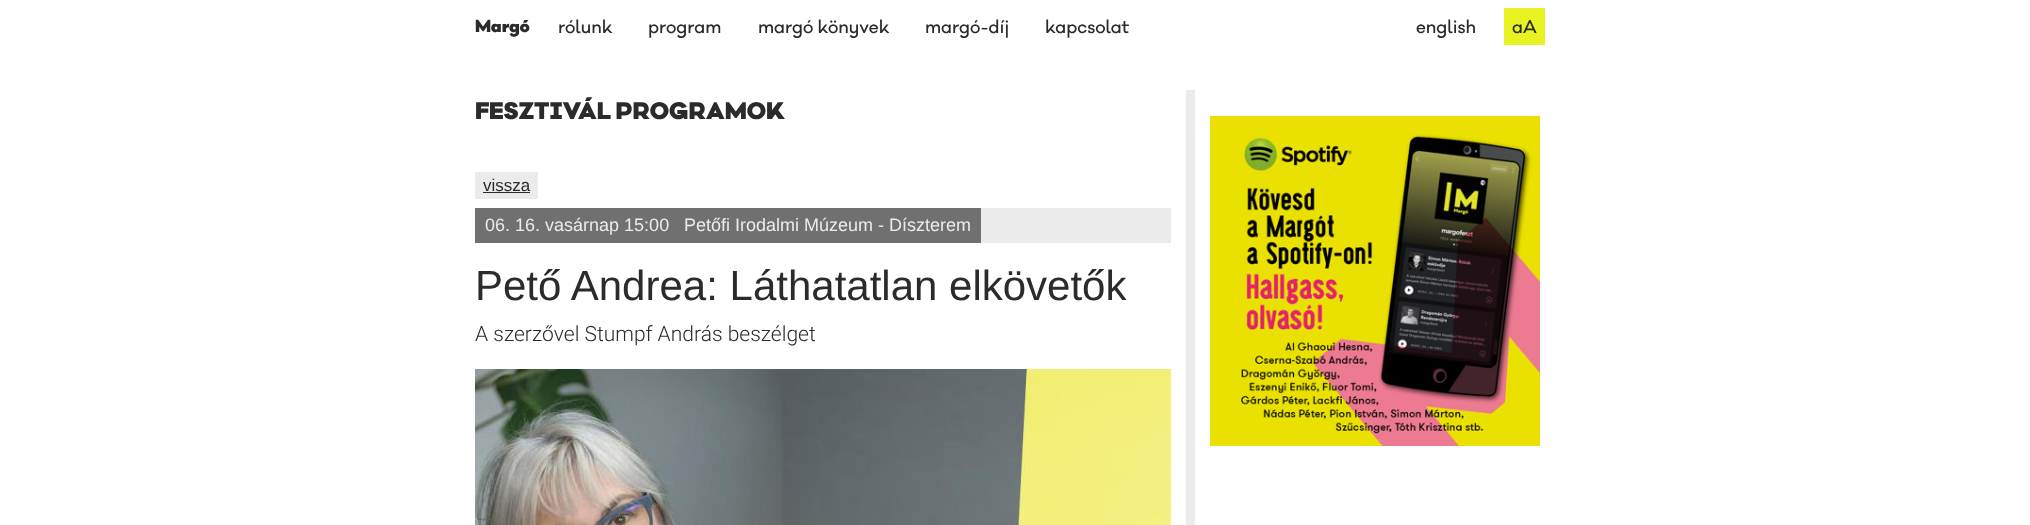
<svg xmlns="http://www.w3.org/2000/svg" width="2030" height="525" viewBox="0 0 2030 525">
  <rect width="100%" height="100%" fill="rgb(255,255,255)"/>
  <text x="475" y="32" font-family="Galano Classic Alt" font-size="16" font-weight="900" fill="rgb(43,43,43)">Margó</text>
  <g font-family="Galano Classic Alt" font-size="17" font-weight="500" fill="rgb(43,43,43)">
    <text x="558" y="33">rólunk</text>
    <text x="648" y="33">program</text>
    <text x="758" y="33">margó könyvek</text>
    <text x="925" y="33">margó-díj</text>
    <text x="1045" y="33">kapcsolat</text>
    <text x="1416" y="33">english</text>
  </g>
  <rect x="1504" y="8" width="41" height="37" fill="rgb(232,242,32)"/>
  <text x="1512" y="33" font-family="Galano Classic Alt" font-size="17" font-weight="500" fill="rgb(43,43,43)">aA</text>
  <rect x="1186" y="90" width="9" height="435" fill="rgb(235,235,235)"/>
  <text x="475" y="119" font-family="Galano Classic Alt" font-size="22" font-weight="900" fill="rgb(43,43,43)">FESZTIVÁL PROGRAMOK</text>
  <rect x="475" y="172" width="63" height="27" fill="rgb(235,235,235)"/>
  <text x="483" y="191" font-family="Liberation Sans" font-size="17" fill="rgb(43,43,43)">vissza</text>
  <rect x="483" y="192" width="47" height="1" fill="rgb(43,43,43)"/>
  <rect x="981" y="208" width="190" height="35" fill="rgb(235,235,235)"/>
  <rect x="475" y="208" width="506" height="35" fill="rgb(112,112,112)"/>
  <g font-family="Liberation Sans" font-size="18" fill="rgb(235,235,235)">
    <text x="485" y="231">06. 16. vasárnap 15:00</text>
    <text x="684" y="231">Petőfi Irodalmi Múzeum - Díszterem</text>
  </g>
  <text x="475" y="300" font-family="Liberation Sans" font-size="42" fill="rgb(43,43,43)">Pető Andrea: Láthatatlan elkövetők</text>
  <text x="475" y="341" font-family="Roboto" font-size="21" font-weight="300" fill="rgb(43,43,43)">A szerzővel Stumpf András beszélget</text>
  <image x="475" y="369" width="696" height="156" href="pic1.png"/>
  <image x="1210" y="116" width="330" height="330" href="pic2.png"/>
</svg>
